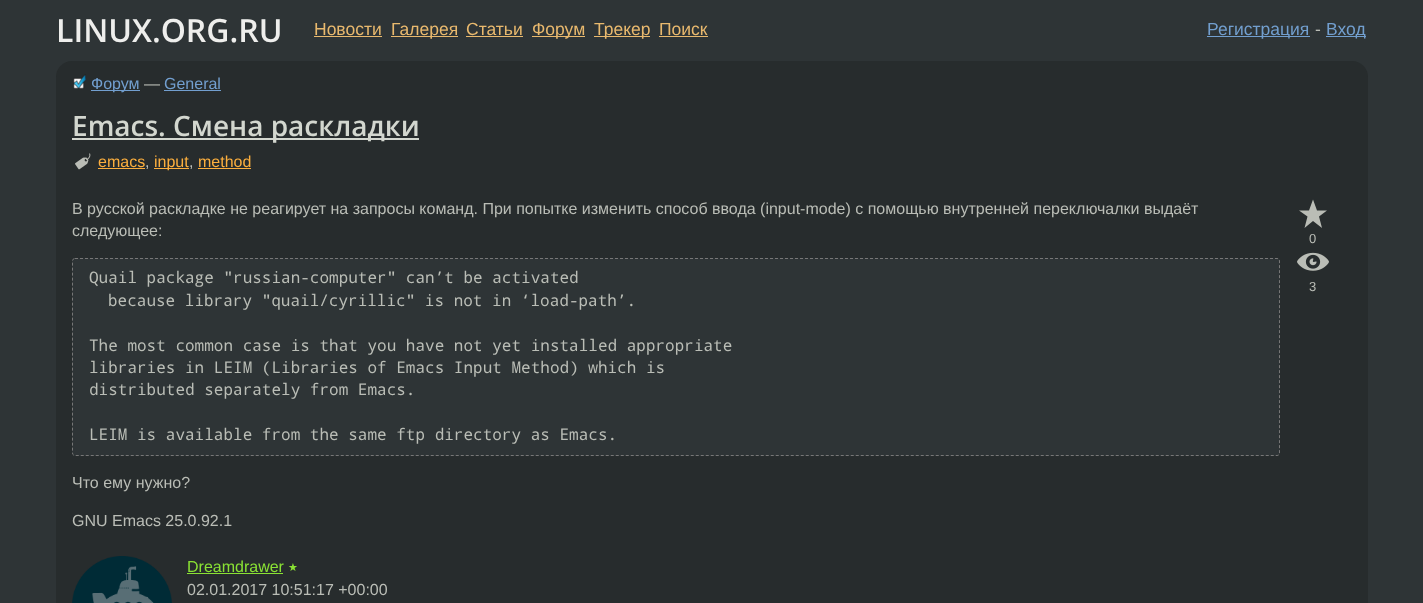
<svg xmlns="http://www.w3.org/2000/svg" width="1423" height="603" viewBox="0 0 1423 603">
  <rect width="100%" height="100%" fill="rgb(46,52,54)"/>
  <text x="56" y="42" font-family="Open Sans" font-size="32" font-weight="600" fill="rgb(238,238,236)">LINUX.ORG.RU</text>
  <text x="314" y="35" font-family="Liberation Sans" font-size="17.5" fill="rgb(233,185,110)">Новости</text>
  <rect x="314" y="36" width="68" height="1" fill="rgb(233,185,110)"/>
  <rect x="391" y="36" width="67" height="1" fill="rgb(233,185,110)"/>
  <g font-family="Liberation Sans" font-size="17.5" fill="rgb(233,185,110)">
    <text x="391" y="35">Галерея</text>
    <text x="466" y="35">Статьи</text>
  </g>
  <rect x="466" y="36" width="57" height="1" fill="rgb(233,185,110)"/>
  <rect x="532" y="36" width="53" height="1" fill="rgb(233,185,110)"/>
  <text x="532" y="35" font-family="Liberation Sans" font-size="17.5" fill="rgb(233,185,110)">Форум</text>
  <rect x="594" y="36" width="56" height="1" fill="rgb(233,185,110)"/>
  <g font-family="Liberation Sans" font-size="17.5" fill="rgb(233,185,110)">
    <text x="594" y="35">Трекер</text>
    <text x="659" y="35">Поиск</text>
  </g>
  <rect x="659" y="36" width="49" height="1" fill="rgb(233,185,110)"/>
  <rect x="1207" y="36" width="103" height="1" fill="rgb(114,159,207)"/>
  <text x="1207" y="35" font-family="Liberation Sans" font-size="17.5" fill="rgb(114,159,207)">Регистрация</text>
  <text x="1315" y="35" font-family="Liberation Sans" font-size="17.5" fill="rgb(186,189,182)">-</text>
  <rect x="1326" y="36" width="40" height="1" fill="rgb(114,159,207)"/>
  <text x="1326" y="35" font-family="Liberation Sans" font-size="17.5" fill="rgb(114,159,207)">Вход</text>
  <rect x="56" y="61" width="1312" height="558" rx="16" fill="rgb(39,44,45)"/>
  <image x="73" y="74" width="13" height="15" href="pic1.png"/>
  <rect x="91" y="90" width="49" height="1" fill="rgb(114,159,207)"/>
  <text x="91" y="89" font-family="Liberation Sans" font-size="16" fill="rgb(114,159,207)">Форум</text>
  <text x="144" y="89" font-family="Liberation Sans" font-size="16" fill="rgb(186,189,182)">—</text>
  <rect x="164" y="90" width="57" height="1" fill="rgb(114,159,207)"/>
  <text x="164" y="89" font-family="Liberation Sans" font-size="16" fill="rgb(114,159,207)">General</text>
  <rect x="72" y="138" width="347" height="2" fill="rgb(211,215,207)"/>
  <text x="72" y="136" font-family="Open Sans" font-size="28" font-weight="600" fill="rgb(211,215,207)">Emacs. Смена раскладки</text>
  <image x="75" y="153" width="16" height="17" href="pic2.png"/>
  <text x="98" y="167" font-family="Liberation Sans" font-size="16" fill="rgb(252,175,62)">emacs</text>
  <rect x="98" y="168" width="47" height="1" fill="rgb(252,175,62)"/>
  <text x="145" y="167" font-family="Liberation Sans" font-size="16" fill="rgb(186,189,182)">,</text>
  <rect x="154" y="168" width="35" height="1" fill="rgb(252,175,62)"/>
  <text x="154" y="167" font-family="Liberation Sans" font-size="16" fill="rgb(252,175,62)">input</text>
  <text x="189" y="167" font-family="Liberation Sans" font-size="16" fill="rgb(186,189,182)">,</text>
  <text x="198" y="167" font-family="Liberation Sans" font-size="16" fill="rgb(252,175,62)">method</text>
  <rect x="198" y="168" width="53" height="1" fill="rgb(252,175,62)"/>
  <g font-family="Liberation Sans" font-size="16" fill="rgb(186,189,182)">
    <text>
      <tspan x="72" y="214">В русской раскладке не реагирует на запросы команд. При попытке изменить способ ввода (input-mode) с помощью внутренней переключалки выдаёт</tspan>
      <tspan x="72" y="236">следующее:</tspan>
    </text>
  </g>
  <rect x="72" y="258" width="1208" height="198" rx="3" fill="rgb(46,52,54)"/>
  <path d="M75 258.5H1277C1278.5 258.5 1279.5 259.5 1279.5 261V453C1279.5 454.5 1278.5 455.5 1277 455.5H75C73.5 455.5 72.5 454.5 72.5 453V261C72.5 259.5 73.5 258.5 75 258.5Z" fill="none" stroke="rgb(119,119,119)" stroke-dasharray="3 2"/>
  <g font-family="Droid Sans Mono" font-size="16" fill="rgb(186,189,182)">
    <text x="89" y="283">Quail package "russian-computer" can’t be activated</text>
    <text x="108" y="306">because library "quail/cyrillic" is not in ‘load-path’.</text>
    <text>
      <tspan x="89" y="351">The most common case is that you have not yet installed appropriate</tspan>
      <tspan x="89" y="373">libraries in LEIM (Libraries of Emacs Input Method) which is</tspan>
      <tspan x="89" y="395">distributed separately from Emacs.</tspan>
    </text>
    <text x="89" y="440">LEIM is available from the same ftp directory as Emacs.</text>
  </g>
  <g font-family="Liberation Sans" font-size="16" fill="rgb(186,189,182)">
    <text x="72" y="488">Что ему нужно?</text>
    <text x="72" y="526">GNU Emacs 25.0.92.1</text>
  </g>
  <path d="M1313 199.5L1317 210.5H1327L1319 216.5L1322 228L1313 221L1304.5 228L1307.5 216.5L1299 210.5H1309Z" fill="rgb(186,189,182)"/>
  <text x="1309" y="243" font-family="Liberation Sans" font-size="13" fill="rgb(186,189,182)">0</text>
  <image x="1297" y="252" width="32" height="19" href="pic3.png"/>
  <text x="1309" y="291" font-family="Liberation Sans" font-size="13" fill="rgb(186,189,182)">3</text>
  <image x="72" y="556" width="100" height="47" href="pic4.png"/>
  <text x="187" y="572" font-family="Liberation Sans" font-size="16" fill="rgb(138,226,52)">Dreamdrawer</text>
  <rect x="187" y="573" width="96" height="1" fill="rgb(138,226,52)"/>
  <text x="288" y="571" font-family="DejaVu Sans" font-size="11" letter-spacing="2" fill="rgb(138,226,52)">★</text>
  <text x="187" y="595" font-family="Liberation Sans" font-size="16" fill="rgb(186,189,182)">02.01.2017 10:51:17 +00:00</text>
</svg>
